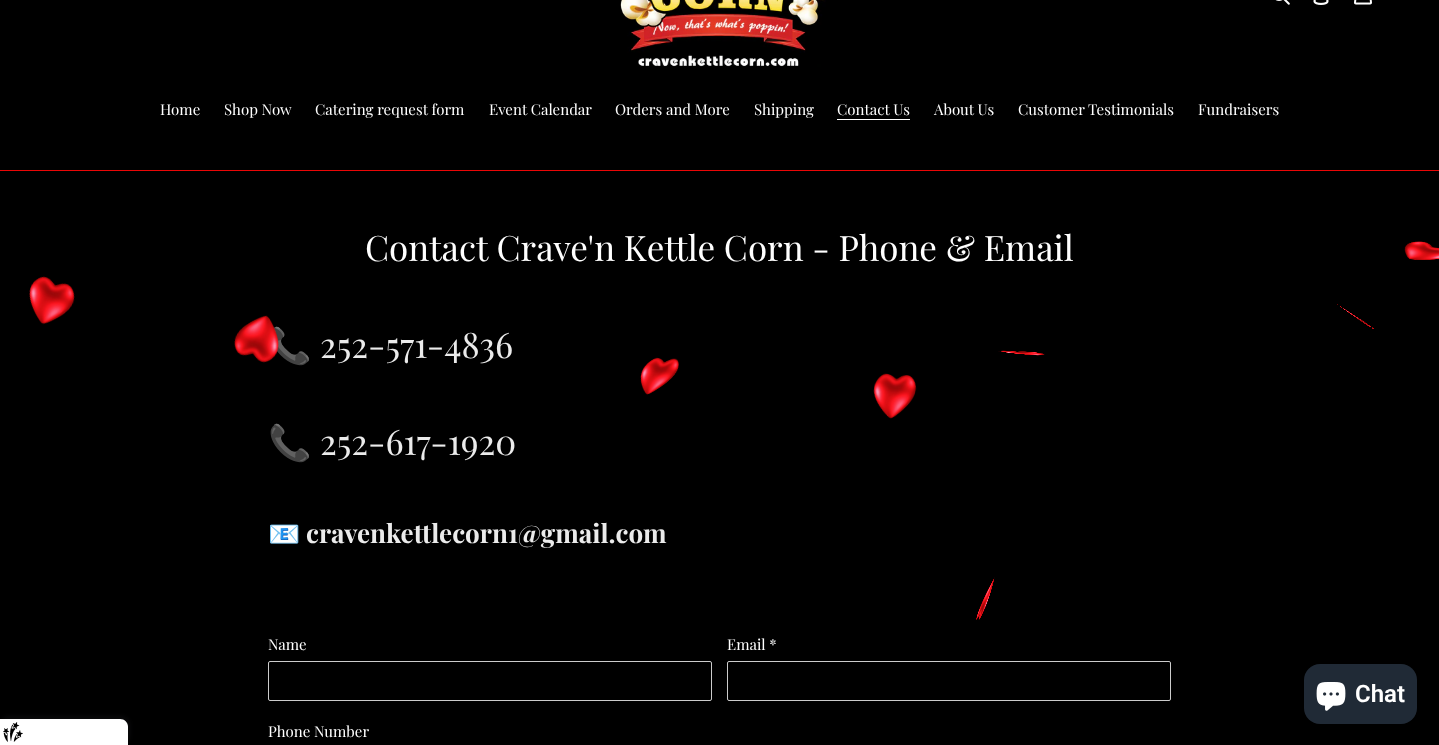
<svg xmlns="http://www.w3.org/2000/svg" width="1439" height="745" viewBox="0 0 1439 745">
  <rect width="100%" height="100%" fill="rgb(0,0,0)"/>
  <image x="620" y="0" width="206" height="67" href="pic1.png"/>
  <image x="1275" y="0" width="15" height="5" href="pic2.png"/>
  <image x="1313" y="0" width="16" height="5" href="pic3.png"/>
  <image x="1354" y="0" width="18" height="5" href="pic4.png"/>
  <rect x="0" y="170" width="1439" height="1" fill="rgb(234,6,6)"/>
  <g font-family="Playfair Display" font-size="15" fill="rgb(255,255,255)">
    <text x="160" y="115">Home</text>
    <text x="224" y="115">Shop Now</text>
    <text x="315" y="115">Catering request form</text>
    <text x="489" y="115">Event Calendar</text>
    <text x="615" y="115">Orders and More</text>
    <text x="754" y="115">Shipping</text>
    <text x="837" y="115">Contact Us</text>
  </g>
  <rect x="837" y="119" width="73" height="1" fill="rgb(255,255,255)"/>
  <g font-family="Playfair Display" font-size="15" fill="rgb(255,255,255)">
    <text x="934" y="115">About Us</text>
    <text x="1018" y="115">Customer Testimonials</text>
    <text x="1198" y="115">Fundraisers</text>
  </g>
  <text x="365" y="261" font-family="Playfair Display" font-size="35" fill="rgb(255,255,255)">Contact Crave'n Kettle Corn - Phone &amp; Email</text>
  <text x="268" y="358" font-family="Noto Color Emoji" font-size="35" fill="rgb(235,235,235)">📞</text>
  <text x="320" y="358" font-family="Playfair Display" font-size="35" fill="rgb(235,235,235)">252-571-4836</text>
  <text x="268" y="455" font-family="Noto Color Emoji" font-size="35" fill="rgb(235,235,235)">📞</text>
  <text x="320" y="455" font-family="Playfair Display" font-size="35" fill="rgb(235,235,235)">252-617-1920</text>
  <text x="268" y="543" font-family="Noto Color Emoji" font-size="26" font-weight="bold" fill="rgb(235,235,235)">📧</text>
  <text x="306" y="543" font-family="Playfair Display" font-size="26" font-weight="bold" fill="rgb(235,235,235)">cravenkettlecorn1@gmail.com</text>
  <text x="268" y="650" font-family="Playfair Display" font-size="15" fill="rgb(255,255,255)">Name</text>
  <rect x="268.5" y="661.5" width="443" height="39" rx="1.5" fill="none" stroke="rgb(204,204,204)"/>
  <text x="727" y="650" font-family="Playfair Display" font-size="15" fill="rgb(255,255,255)">Email *</text>
  <rect x="727.5" y="661.5" width="443" height="39" rx="1.5" fill="none" stroke="rgb(204,204,204)"/>
  <text x="268" y="737" font-family="Playfair Display" font-size="15" fill="rgb(255,255,255)">Phone Number</text>
  <image x="1404" y="241" width="35" height="19" href="pic5.png"/>
  <image x="29" y="276" width="46" height="49" href="pic6.png"/>
  <image x="234" y="315" width="45" height="48" href="pic7.png"/>
  <image x="998" y="350" width="47" height="6" href="pic8.png"/>
  <image x="1337" y="304" width="37" height="25" href="pic9.png"/>
  <image x="640" y="357" width="39" height="38" href="pic10.png"/>
  <image x="873" y="373" width="44" height="46" href="pic11.png"/>
  <image x="976" y="577" width="19" height="43" href="pic12.png"/>
  <rect x="1304" y="664" width="113" height="60" rx="16" fill="rgb(32,42,54)"/>
  <image x="1316" y="682" width="30" height="29" href="pic13.png"/>
  <text x="1355" y="702" font-family="Roboto" font-size="24" font-weight="600" fill="rgb(255,255,255)">Chat</text>
  <rect x="0" y="716" width="130" height="28" rx="9" fill="rgba(64,60,67,0.16)" filter="blur(2px)"/>
  <path d="M0 719H120C124.5 719 128 722.5 128 727V745H0Z" fill="rgb(255,255,255)"/>
  <image x="3" y="722" width="20" height="20" href="pic14.png"/>
</svg>
